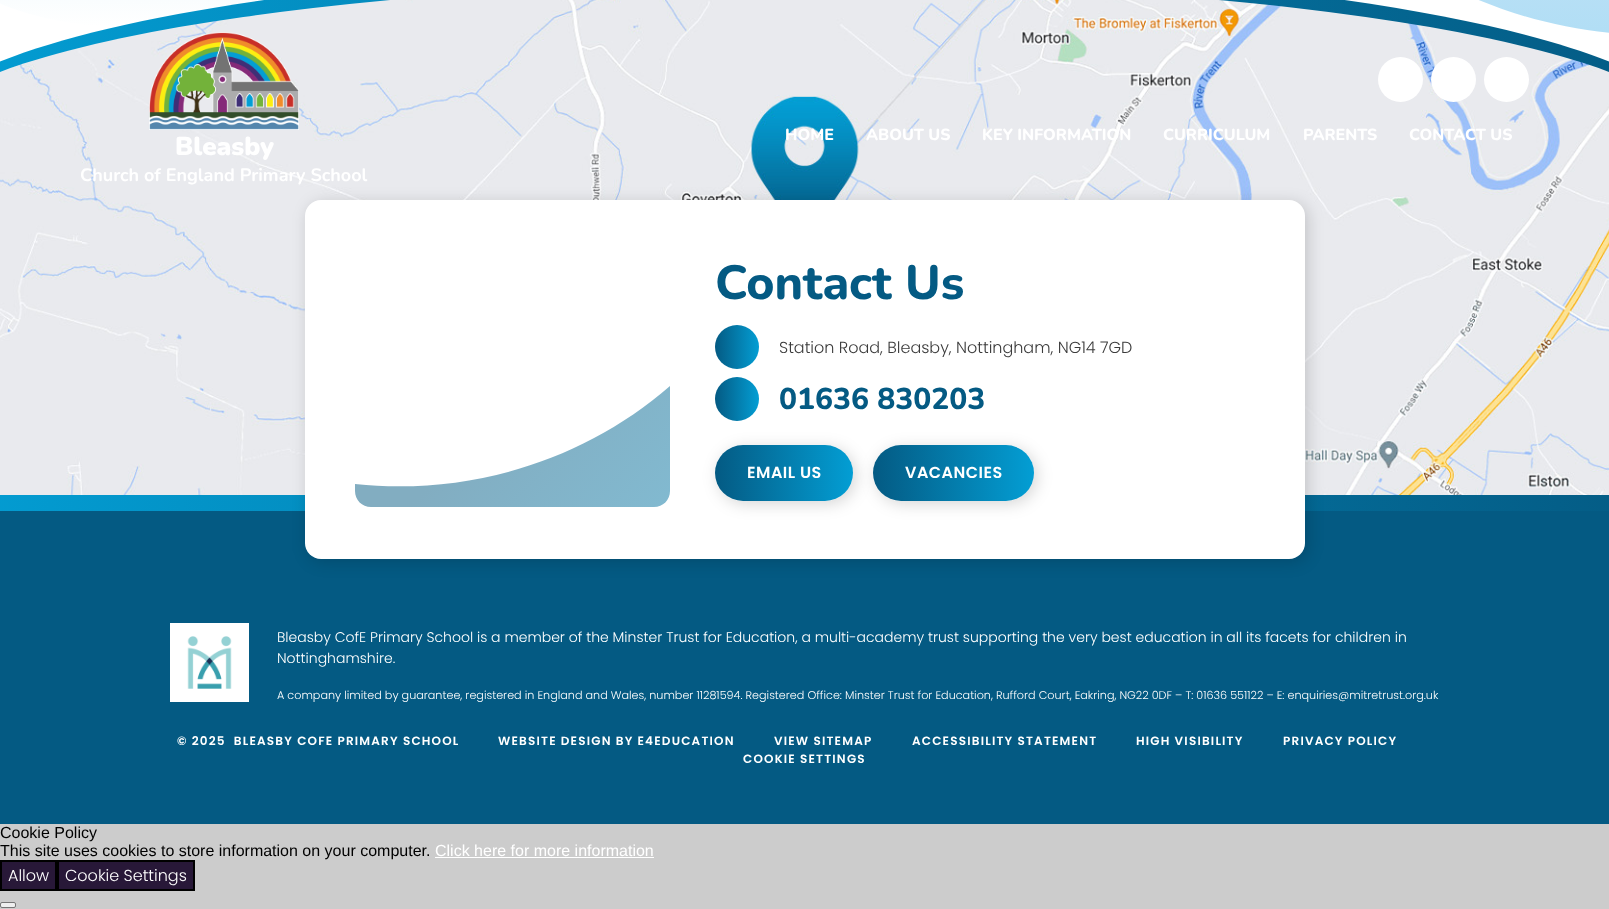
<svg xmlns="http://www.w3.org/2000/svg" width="1609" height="909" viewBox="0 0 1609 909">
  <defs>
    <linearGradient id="g1" gradientUnits="userSpaceOnUse" x1="124" y1="-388" x2="125" y2="27"><stop offset="0" stop-color="rgb(172,223,241)"/><stop offset="1" stop-color="rgb(255,255,255)"/></linearGradient>
    <linearGradient id="g2" gradientUnits="userSpaceOnUse" x1="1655" y1="-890" x2="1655" y2="35"><stop offset="0" stop-color="rgb(254,253,255)"/><stop offset="0.49" stop-color="rgb(240,237,252)"/><stop offset="1" stop-color="rgb(177,222,245)"/></linearGradient>
    <linearGradient id="g3" gradientUnits="userSpaceOnUse" x1="-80" y1="239" x2="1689" y2="238"><stop offset="0" stop-color="rgb(3,158,212)"/><stop offset="1" stop-color="rgb(4,90,131)"/></linearGradient>
    <linearGradient id="g4" gradientUnits="userSpaceOnUse" x1="372" y1="546" x2="740" y2="895"><stop offset="0" stop-color="rgb(130,173,193)"/><stop offset="1" stop-color="rgb(129,207,234)"/></linearGradient>
    <linearGradient id="g5" gradientUnits="userSpaceOnUse" x1="715" y1="347" x2="759" y2="347"><stop offset="0" stop-color="rgb(4,90,131)"/><stop offset="1" stop-color="rgb(3,158,212)"/></linearGradient>
    <linearGradient id="g6" gradientUnits="userSpaceOnUse" x1="715" y1="399" x2="759" y2="399"><stop offset="0" stop-color="rgb(4,90,131)"/><stop offset="1" stop-color="rgb(3,158,212)"/></linearGradient>
    <linearGradient id="g7" gradientUnits="userSpaceOnUse" x1="715" y1="473" x2="853" y2="473"><stop offset="0" stop-color="rgb(4,90,131)"/><stop offset="1" stop-color="rgb(3,158,212)"/></linearGradient>
    <clipPath id="clip1"><path d="M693 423H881V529H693ZM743 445H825C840.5 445 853 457.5 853 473C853 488.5 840.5 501 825 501H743C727.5 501 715 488.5 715 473C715 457.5 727.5 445 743 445Z" clip-rule="evenodd"/></clipPath>
    <linearGradient id="g8" gradientUnits="userSpaceOnUse" x1="873" y1="473" x2="1034" y2="473"><stop offset="0" stop-color="rgb(4,90,131)"/><stop offset="1" stop-color="rgb(3,158,212)"/></linearGradient>
    <clipPath id="clip2"><path d="M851 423H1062V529H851ZM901 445H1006C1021.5 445 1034 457.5 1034 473C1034 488.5 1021.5 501 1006 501H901C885.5 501 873 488.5 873 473C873 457.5 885.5 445 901 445Z" clip-rule="evenodd"/></clipPath>
  </defs>
  <rect width="100%" height="100%" fill="rgb(204,204,204)"/>
  <rect x="0" y="0" width="1609" height="62" fill="rgb(255,255,255)"/>
  <rect x="-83" y="-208" width="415" height="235" rx="207.5" fill="url(#g1)"/>
  <path d="M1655.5-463H1609V35H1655.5C1400 35 1193-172 1193-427.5V-.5C1193-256 1400-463 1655.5-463Z" fill="url(#g2)"/>
  <path d="M804-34C1293-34 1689 39 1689 130V511H-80V130C-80 39 316-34 804-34Z" fill="url(#g3)"/>
  <image x="0" y="0" width="1609" height="495" href="pic2.png"/>
  <circle cx="1400.5" cy="79.5" r="22.5" fill="rgb(255,255,255)"/>
  <circle cx="1453.5" cy="79.5" r="22.5" fill="rgb(255,255,255)"/>
  <circle cx="1506.5" cy="79.5" r="22.5" fill="rgb(255,255,255)"/>
  <g font-family="Nunito" font-size="16" font-weight="800" fill="rgb(255,255,255)">
    <text x="785" y="140">HOME</text>
    <text x="866" y="140">ABOUT US</text>
    <text x="982" y="140">KEY INFORMATION</text>
    <text x="1163" y="140">CURRICULUM</text>
    <text x="1303" y="140">PARENTS</text>
    <text x="1409" y="140">CONTACT US</text>
  </g>
  <image x="149" y="32" width="150" height="98" href="pic1.png"/>
  <text x="175" y="155" font-family="Nunito" font-size="26" font-weight="900" fill="rgb(255,255,255)">Bleasby</text>
  <rect x="0" y="511" width="1609" height="313" fill="rgb(4,90,131)"/>
  <rect x="308" y="203" width="1000" height="359" rx="16" fill="rgba(0,0,0,0.16)" filter="blur(8px)"/>
  <text x="80" y="181" font-family="Nunito" font-size="18" font-weight="bold" fill="rgb(255,255,255)">Church of England Primary School</text>
  <rect x="305" y="200" width="1000" height="359" rx="16" fill="rgb(255,255,255)"/>
  <path d="M355 484V491C355 500 362 507 371 507H654C663 507 670 500 670 491V386C584 461 469 496 355 484Z" fill="url(#g4)"/>
  <text x="715" y="299" font-family="Nunito" font-size="48" font-weight="800" fill="rgb(4,90,131)">Contact Us</text>
  <circle cx="737" cy="347" r="22" fill="url(#g5)"/>
  <text x="779" y="353" font-family="Poppins" font-size="16" font-weight="300" fill="rgb(59,59,59)">Station Road, Bleasby, Nottingham, NG14 7GD</text>
  <circle cx="737" cy="399" r="22" fill="url(#g6)"/>
  <text x="779" y="409" font-family="Nunito" font-size="30" font-weight="800" fill="rgb(4,90,131)">01636 830203</text>
  <rect x="715" y="445" width="138" height="56" rx="28" fill="url(#g7)"/>
  <g clip-path="url(#clip1)">
    <rect x="718" y="448" width="138" height="56" rx="28" fill="rgba(0,0,0,0.16)" filter="blur(8px)"/>
  </g>
  <text x="747" y="478" font-family="Poppins" font-size="16" font-weight="600" letter-spacing="0.5" fill="rgb(255,255,255)">EMAIL US</text>
  <rect x="873" y="445" width="161" height="56" rx="28" fill="url(#g8)"/>
  <g clip-path="url(#clip2)">
    <rect x="876" y="448" width="161" height="56" rx="28" fill="rgba(0,0,0,0.16)" filter="blur(8px)"/>
  </g>
  <text x="905" y="478" font-family="Poppins" font-size="16" font-weight="600" letter-spacing="0.5" fill="rgb(255,255,255)">VACANCIES</text>
  <image x="170" y="623" width="79" height="79" href="pic3.png"/>
  <g font-family="Poppins" font-size="14" font-weight="300" fill="rgb(255,255,255)">
    <text>
      <tspan x="277" y="642">Bleasby CofE Primary School is a member of the Minster Trust for Education, a multi-academy trust supporting the very best education in all its facets for children in</tspan>
      <tspan x="277" y="663">Nottinghamshire.</tspan>
    </text>
  </g>
  <text x="277" y="699" font-family="Poppins" font-size="11.2" font-weight="300" fill="rgb(255,255,255)">A company limited by guarantee, registered in England and Wales, number 11281594. Registered Office: Minster Trust for Education, Rufford Court, Eakring, NG22 0DF – T: 01636 551122 – E: enquiries@mitretrust.org.uk</text>
  <g font-family="Poppins" font-size="12" font-weight="600" letter-spacing="1.2" fill="rgb(255,255,255)">
    <text x="177" y="745" xml:space="preserve">© 2025  BLEASBY COFE PRIMARY SCHOOL</text>
    <text x="498" y="745">WEBSITE DESIGN BY E4EDUCATION</text>
    <text x="774" y="745">VIEW SITEMAP</text>
    <text x="912" y="745">ACCESSIBILITY STATEMENT</text>
    <text x="1136" y="745">HIGH VISIBILITY</text>
    <text x="1283" y="745">PRIVACY POLICY</text>
    <text x="743" y="763">COOKIE SETTINGS</text>
  </g>
  <g font-family="Liberation Sans" font-size="16" fill="rgb(0,0,0)">
    <text>
      <tspan x="0" y="838">Cookie Policy</tspan>
      <tspan x="0" y="856">This site uses cookies to store information on your computer.</tspan>
    </text>
  </g>
  <text x="435" y="856" font-family="Liberation Sans" font-size="16" fill="rgb(255,255,255)">Click here for more information</text>
  <rect x="435" y="857" width="219" height="1" fill="rgb(255,255,255)"/>
  <rect x="1" y="861" width="55" height="29" fill="rgb(40,24,56)" stroke="rgb(0,0,0)" stroke-width="2"/>
  <text x="8" y="881" font-family="Poppins" font-size="16" font-weight="300" fill="rgb(255,255,255)">Allow</text>
  <rect x="58" y="861" width="136" height="29" fill="rgb(40,24,56)" stroke="rgb(0,0,0)" stroke-width="2"/>
  <text x="65" y="881" font-family="Poppins" font-size="16" font-weight="300" fill="rgb(255,255,255)">Cookie Settings</text>
  <rect x="0.5" y="902.5" width="15" height="5" rx="1.5" fill="rgb(239,239,239)" stroke="rgb(118,118,118)"/>
</svg>
